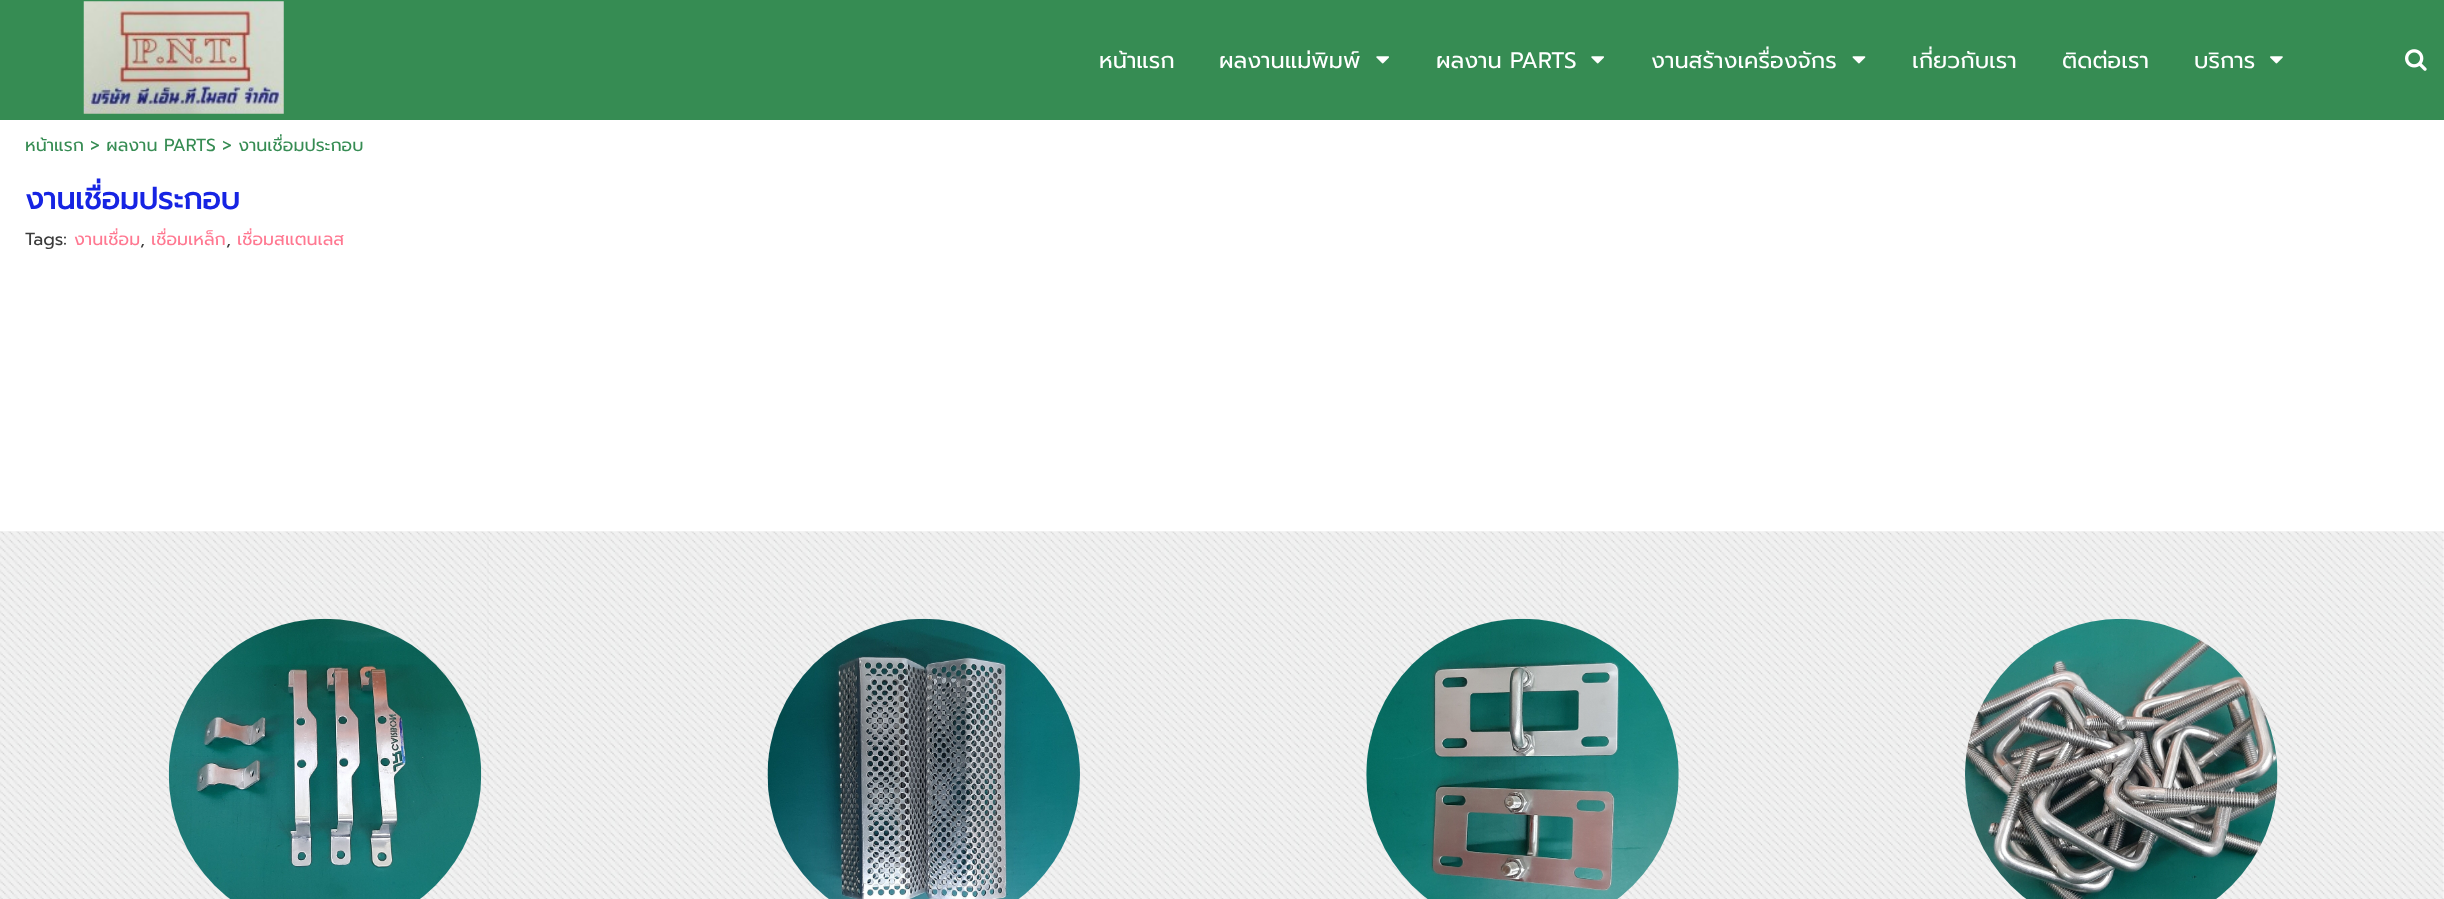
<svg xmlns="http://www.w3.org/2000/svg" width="2444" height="899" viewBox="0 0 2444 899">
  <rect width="100%" height="100%" fill="rgb(255,255,255)"/>
  <rect x="0" y="0" width="2444" height="120" fill="rgb(54,140,83)"/>
  <image x="83" y="1" width="201" height="113" href="pic1.png"/>
  <g font-family="Prompt" font-size="22.5" fill="rgb(255,255,255)">
    <text x="1099" y="68">หน้าแรก</text>
    <text x="1219" y="68">ผลงานแม่พิมพ์</text>
  </g>
  <image x="1376" y="56" width="13" height="8" href="pic2.png"/>
  <text x="1436" y="68" font-family="Prompt" font-size="22.5" fill="rgb(255,255,255)">ผลงาน PARTS</text>
  <image x="1591" y="56" width="13" height="8" href="pic2.png"/>
  <text x="1651" y="68" font-family="Prompt" font-size="22.5" fill="rgb(255,255,255)">งานสร้างเครื่องจักร</text>
  <image x="1852" y="56" width="14" height="8" href="pic3.png"/>
  <g font-family="Prompt" font-size="22.5" fill="rgb(255,255,255)">
    <text x="1912" y="68">เกี่ยวกับเรา</text>
    <text x="2062" y="68">ติดต่อเรา</text>
    <text x="2194" y="68">บริการ</text>
  </g>
  <image x="2270" y="56" width="13" height="8" href="pic4.png"/>
  <image x="2405" y="49" width="22" height="22" href="pic5.png"/>
  <text x="25" y="151" font-family="Prompt" font-size="17.5" fill="rgb(54,140,83)">หน้าแรก &gt; ผลงาน PARTS &gt; งานเชื่อมประกอบ</text>
  <text x="25" y="209" font-family="Prompt" font-size="30" font-weight="bold" fill="rgb(22,36,227)">งานเชื่อมประกอบ</text>
  <text x="25" y="245" font-family="Prompt" font-size="17.5" fill="rgb(59,59,59)">Tags:</text>
  <text x="74" y="245" font-family="Prompt" font-size="17.5" fill="rgb(255,120,145)">งานเชื่อม</text>
  <text x="140" y="245" font-family="Prompt" font-size="17.5" fill="rgb(59,59,59)">,</text>
  <text x="151" y="245" font-family="Prompt" font-size="17.5" fill="rgb(255,120,145)">เชื่อมเหล็ก</text>
  <text x="226" y="245" font-family="Prompt" font-size="17.5" fill="rgb(59,59,59)">,</text>
  <text x="237" y="245" font-family="Prompt" font-size="17.5" fill="rgb(255,120,145)">เชื่อมสแตนเลส</text>
  <image x="0" y="531" width="2444" height="368" href="pic6.png"/>
  <image x="168" y="618" width="314" height="281" href="pic7.png"/>
  <image x="767" y="618" width="313" height="281" href="pic8.png"/>
  <image x="1366" y="618" width="313" height="281" href="pic9.png"/>
  <image x="1965" y="618" width="313" height="281" href="pic10.png"/>
</svg>
